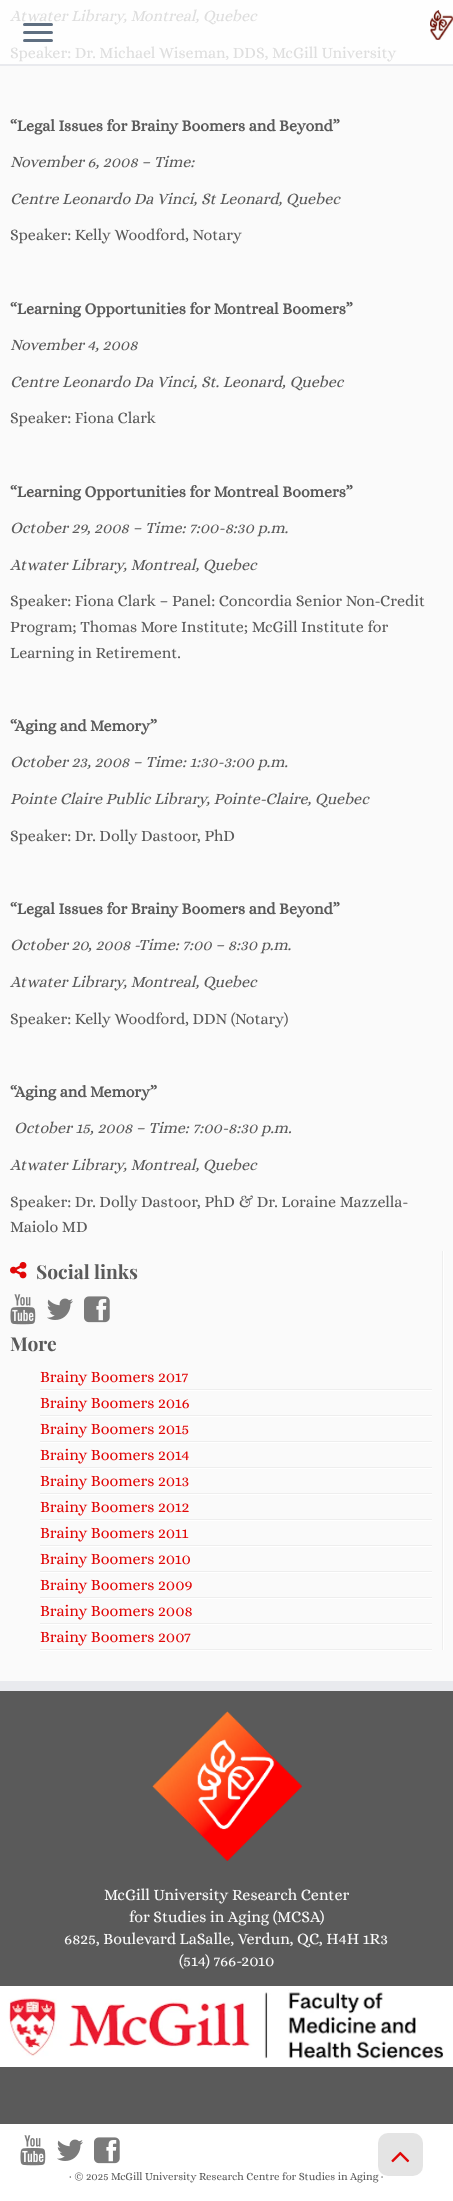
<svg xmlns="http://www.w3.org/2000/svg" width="453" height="2201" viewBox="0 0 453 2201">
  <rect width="100%" height="100%" fill="rgb(250,250,250)"/>
  <rect x="0" y="0" width="453" height="64" fill="rgb(254,254,254)"/>
  <text x="10" y="21" font-family="Alice" font-size="16" font-style="italic" fill="rgb(222,222,222)">Atwater Library, Montreal, Quebec</text>
  <text x="10" y="58" font-family="Alice" font-size="16" fill="rgb(222,222,222)">Speaker: Dr. Michael Wiseman, DDS, McGill University</text>
  <text x="10" y="131" font-family="Alice" font-size="16" font-weight="bold" fill="rgb(90,90,90)">“Legal Issues for Brainy Boomers and Beyond”</text>
  <g font-family="Alice" font-size="16" font-style="italic" fill="rgb(90,90,90)">
    <text x="10" y="167">November 6, 2008 – Time:</text>
    <text x="10" y="204">Centre Leonardo Da Vinci, St Leonard, Quebec</text>
  </g>
  <text x="10" y="240" font-family="Alice" font-size="16" fill="rgb(90,90,90)">Speaker: Kelly Woodford, Notary</text>
  <text x="10" y="314" font-family="Alice" font-size="16" font-weight="bold" fill="rgb(90,90,90)">“Learning Opportunities for Montreal Boomers”</text>
  <g font-family="Alice" font-size="16" font-style="italic" fill="rgb(90,90,90)">
    <text x="10" y="350">November 4, 2008</text>
    <text x="10" y="387">Centre Leonardo Da Vinci, St. Leonard, Quebec</text>
  </g>
  <text x="10" y="423" font-family="Alice" font-size="16" fill="rgb(90,90,90)">Speaker: Fiona Clark</text>
  <text x="10" y="497" font-family="Alice" font-size="16" font-weight="bold" fill="rgb(90,90,90)">“Learning Opportunities for Montreal Boomers”</text>
  <g font-family="Alice" font-size="16" font-style="italic" fill="rgb(90,90,90)">
    <text x="10" y="533">October 29, 2008 – Time: 7:00-8:30 p.m.</text>
    <text x="10" y="570">Atwater Library, Montreal, Quebec</text>
  </g>
  <g font-family="Alice" font-size="16" fill="rgb(90,90,90)">
    <text>
      <tspan x="10" y="606">Speaker: Fiona Clark – Panel: Concordia Senior Non-Credit</tspan>
      <tspan x="10" y="632">Program; Thomas More Institute; McGill Institute for</tspan>
      <tspan x="10" y="658">Learning in Retirement.</tspan>
    </text>
  </g>
  <text x="10" y="731" font-family="Alice" font-size="16" font-weight="bold" fill="rgb(90,90,90)">“Aging and Memory”</text>
  <g font-family="Alice" font-size="16" font-style="italic" fill="rgb(90,90,90)">
    <text x="10" y="767">October 23, 2008 – Time: 1:30-3:00 p.m.</text>
    <text x="10" y="804">Pointe Claire Public Library, Pointe-Claire, Quebec</text>
  </g>
  <text x="10" y="841" font-family="Alice" font-size="16" fill="rgb(90,90,90)">Speaker: Dr. Dolly Dastoor, PhD</text>
  <text x="10" y="914" font-family="Alice" font-size="16" font-weight="bold" fill="rgb(90,90,90)">“Legal Issues for Brainy Boomers and Beyond”</text>
  <g font-family="Alice" font-size="16" font-style="italic" fill="rgb(90,90,90)">
    <text x="10" y="950">October 20, 2008 -Time: 7:00 – 8:30 p.m.</text>
    <text x="10" y="987">Atwater Library, Montreal, Quebec</text>
  </g>
  <text x="10" y="1024" font-family="Alice" font-size="16" fill="rgb(90,90,90)">Speaker: Kelly Woodford, DDN (Notary)</text>
  <text x="10" y="1097" font-family="Alice" font-size="16" font-weight="bold" fill="rgb(90,90,90)">“Aging and Memory”</text>
  <g font-family="Alice" font-size="16" font-style="italic" fill="rgb(90,90,90)">
    <text x="14" y="1133">October 15, 2008 – Time: 7:00-8:30 p.m.</text>
    <text x="10" y="1170">Atwater Library, Montreal, Quebec</text>
  </g>
  <g font-family="Alice" font-size="16" fill="rgb(90,90,90)">
    <text>
      <tspan x="10" y="1207">Speaker: Dr. Dolly Dastoor, PhD &amp; Dr. Loraine Mazzella-</tspan>
      <tspan x="10" y="1232">Maiolo MD</tspan>
    </text>
  </g>
  <rect x="442" y="1251" width="1" height="399" fill="rgb(238,238,238)"/>
  <image x="10" y="1262" width="17" height="17" href="pic1.png"/>
  <text x="36" y="1279" font-family="Playfair Display" font-size="19.25" font-weight="bold" fill="rgb(90,90,90)">Social links</text>
  <image x="10" y="1294" width="26" height="31" href="pic2.png"/>
  <image x="47" y="1298" width="26" height="22" href="pic3.png"/>
  <image x="84" y="1296" width="26" height="27" href="pic4.png"/>
  <rect x="443" y="1251" width="1" height="399" fill="rgb(255,255,255)"/>
  <text x="10" y="1351" font-family="Playfair Display" font-size="19.25" font-weight="bold" fill="rgb(90,90,90)">More</text>
  <rect x="40" y="1389" width="392" height="1" fill="rgb(238,238,238)"/>
  <text x="40" y="1382" font-family="Alice" font-size="16" fill="rgb(225,7,7)">Brainy Boomers 2017</text>
  <rect x="40" y="1390" width="392" height="1" fill="rgb(255,255,255)"/>
  <rect x="40" y="1415" width="392" height="1" fill="rgb(238,238,238)"/>
  <text x="40" y="1408" font-family="Alice" font-size="16" fill="rgb(225,7,7)">Brainy Boomers 2016</text>
  <rect x="40" y="1416" width="392" height="1" fill="rgb(255,255,255)"/>
  <rect x="40" y="1441" width="392" height="1" fill="rgb(238,238,238)"/>
  <text x="40" y="1434" font-family="Alice" font-size="16" fill="rgb(225,7,7)">Brainy Boomers 2015</text>
  <rect x="40" y="1442" width="392" height="1" fill="rgb(255,255,255)"/>
  <rect x="40" y="1467" width="392" height="1" fill="rgb(238,238,238)"/>
  <text x="40" y="1460" font-family="Alice" font-size="16" fill="rgb(225,7,7)">Brainy Boomers 2014</text>
  <rect x="40" y="1468" width="392" height="1" fill="rgb(255,255,255)"/>
  <rect x="40" y="1493" width="392" height="1" fill="rgb(238,238,238)"/>
  <text x="40" y="1486" font-family="Alice" font-size="16" fill="rgb(225,7,7)">Brainy Boomers 2013</text>
  <rect x="40" y="1494" width="392" height="1" fill="rgb(255,255,255)"/>
  <rect x="40" y="1519" width="392" height="1" fill="rgb(238,238,238)"/>
  <text x="40" y="1512" font-family="Alice" font-size="16" fill="rgb(225,7,7)">Brainy Boomers 2012</text>
  <rect x="40" y="1520" width="392" height="1" fill="rgb(255,255,255)"/>
  <rect x="40" y="1545" width="392" height="1" fill="rgb(238,238,238)"/>
  <text x="40" y="1538" font-family="Alice" font-size="16" fill="rgb(225,7,7)">Brainy Boomers 2011</text>
  <rect x="40" y="1546" width="392" height="1" fill="rgb(255,255,255)"/>
  <rect x="40" y="1571" width="392" height="1" fill="rgb(238,238,238)"/>
  <text x="40" y="1564" font-family="Alice" font-size="16" fill="rgb(225,7,7)">Brainy Boomers 2010</text>
  <rect x="40" y="1572" width="392" height="1" fill="rgb(255,255,255)"/>
  <rect x="40" y="1597" width="392" height="1" fill="rgb(238,238,238)"/>
  <text x="40" y="1590" font-family="Alice" font-size="16" fill="rgb(225,7,7)">Brainy Boomers 2009</text>
  <rect x="40" y="1598" width="392" height="1" fill="rgb(255,255,255)"/>
  <rect x="40" y="1623" width="392" height="1" fill="rgb(238,238,238)"/>
  <text x="40" y="1616" font-family="Alice" font-size="16" fill="rgb(225,7,7)">Brainy Boomers 2008</text>
  <rect x="40" y="1624" width="392" height="1" fill="rgb(255,255,255)"/>
  <rect x="40" y="1649" width="392" height="1" fill="rgb(238,238,238)"/>
  <text x="40" y="1642" font-family="Alice" font-size="16" fill="rgb(225,7,7)">Brainy Boomers 2007</text>
  <rect x="40" y="1650" width="392" height="1" fill="rgb(255,255,255)"/>
  <rect x="0" y="64" width="453" height="2" fill="rgb(233,234,238)"/>
  <rect x="23" y="23" width="30" height="3" rx="1.5" fill="rgb(95,111,129)"/>
  <rect x="23" y="31" width="30" height="3" rx="1.5" fill="rgb(95,111,129)"/>
  <rect x="23" y="39" width="30" height="3" rx="1.5" fill="rgb(95,111,129)"/>
  <image x="430" y="10" width="23" height="30" href="pic5.png"/>
  <rect x="0" y="1691" width="453" height="433" fill="rgb(90,90,90)"/>
  <rect x="0" y="1681" width="453" height="10" fill="rgb(233,234,238)"/>
  <image x="152" y="1711" width="150" height="150" href="pic6.png"/>
  <g font-family="Alice" font-size="16" fill="rgb(250,250,250)">
    <text x="104" y="1900">McGill University Research Center</text>
    <text x="129" y="1922">for Studies in Aging (MCSA)</text>
    <text x="64" y="1944">6825, Boulevard LaSalle, Verdun, QC, H4H 1R3</text>
    <text x="179" y="1966">(514) 766-2010</text>
  </g>
  <image x="0" y="1986" width="453" height="81" href="pic7.png"/>
  <rect x="0" y="2124" width="453" height="77" fill="rgb(255,255,255)"/>
  <image x="20" y="2135" width="26" height="31" href="pic8.png"/>
  <image x="57" y="2139" width="26" height="22" href="pic9.png"/>
  <image x="94" y="2137" width="26" height="27" href="pic10.png"/>
  <text x="69" y="2180" font-family="Alice" font-size="11" fill="rgb(90,90,90)">· © 2025 McGill University Research Centre for Studies in Aging ·</text>
  <rect x="378" y="2133" width="45" height="43" rx="10" fill="rgb(228,228,228)"/>
  <image x="391" y="2151" width="19" height="12" href="pic11.png"/>
</svg>
